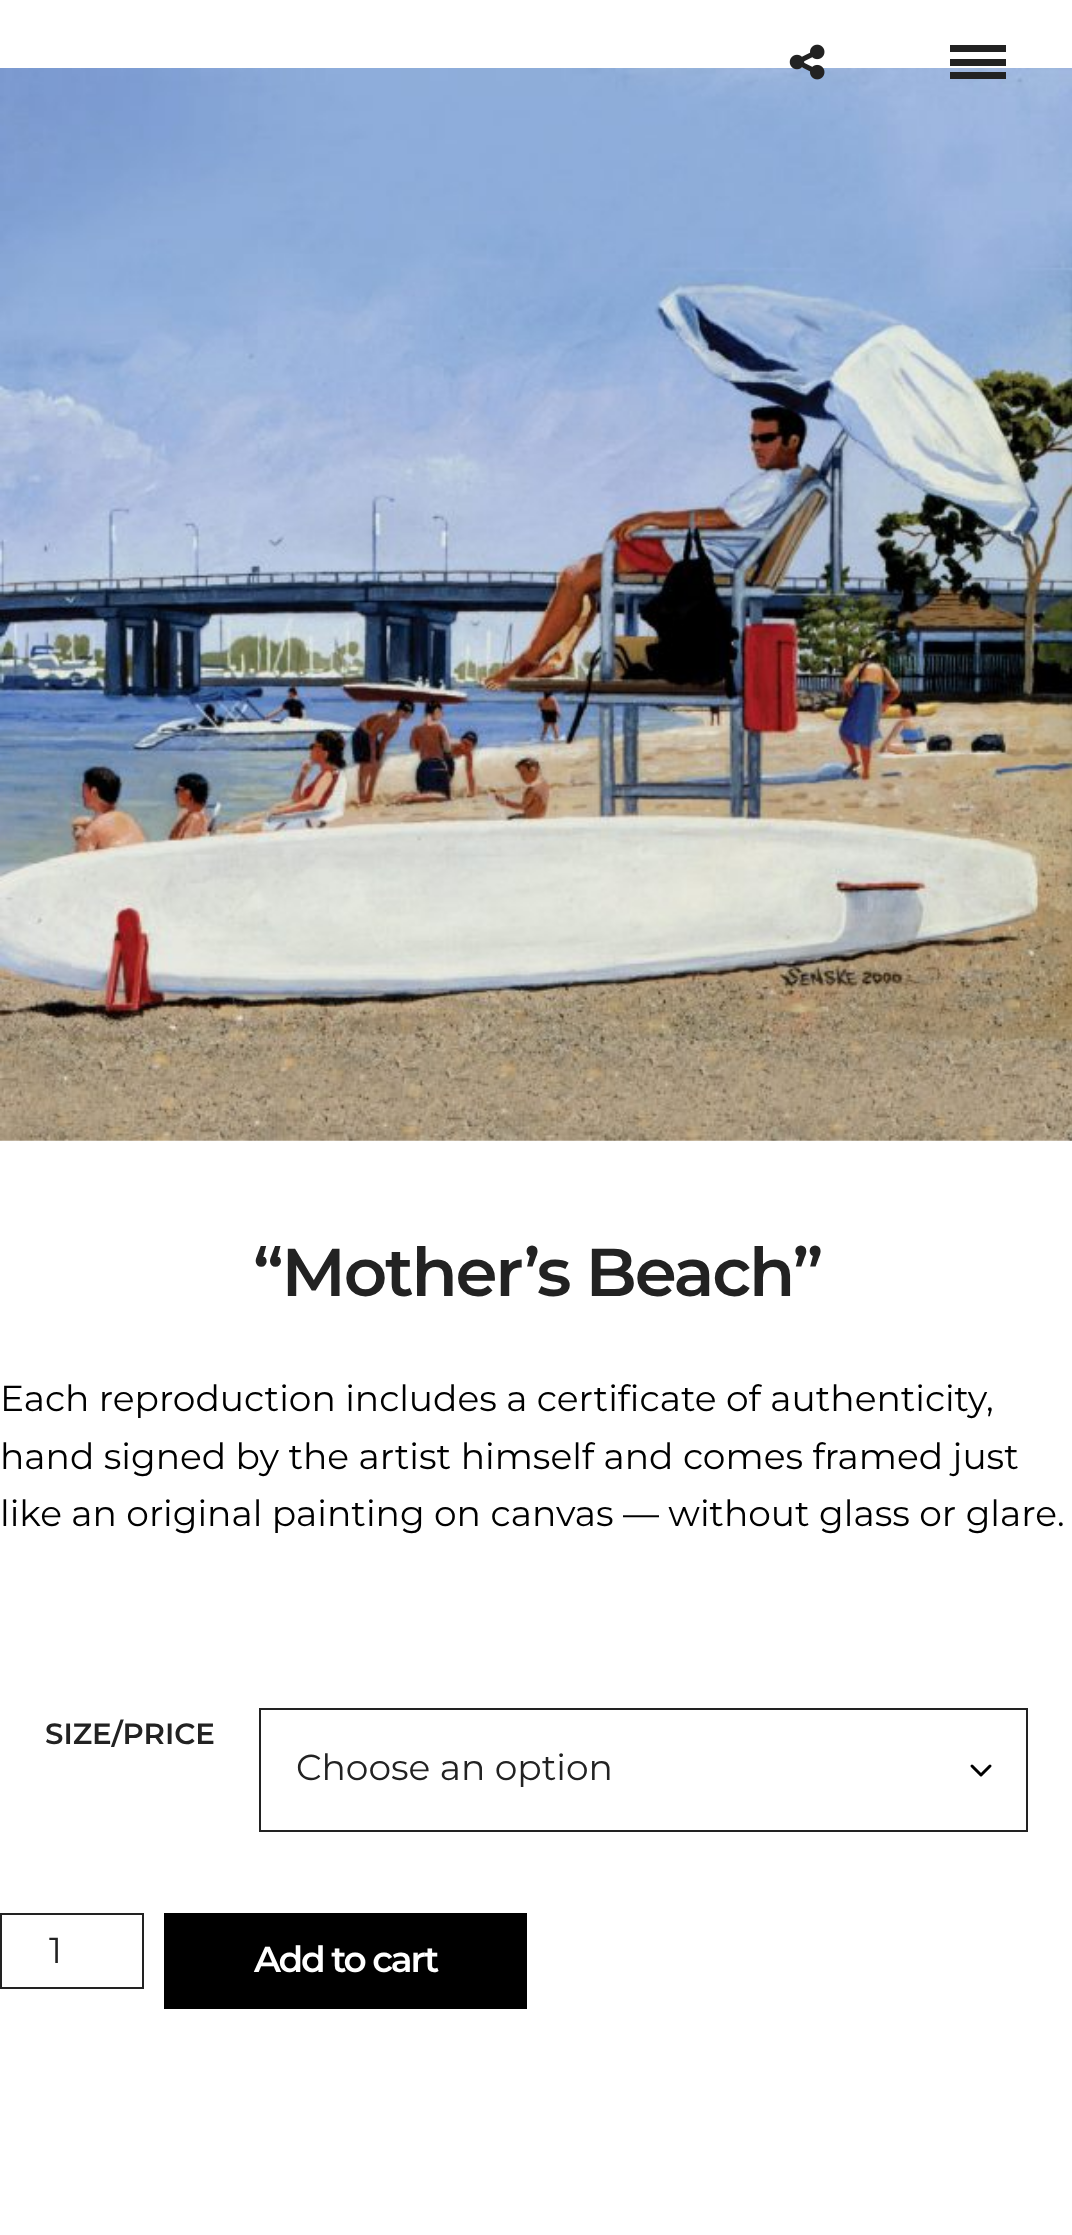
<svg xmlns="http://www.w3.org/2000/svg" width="1072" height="2235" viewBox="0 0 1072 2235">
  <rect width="100%" height="100%" fill="rgb(255,255,255)"/>
  <image x="0" y="68" width="1072" height="1073" href="pic2.png"/>
  <image x="789" y="44" width="36" height="36" href="pic1.png"/>
  <rect x="950" y="45" width="56" height="7" fill="rgb(34,34,34)"/>
  <rect x="950" y="59" width="56" height="7" fill="rgb(34,34,34)"/>
  <rect x="950" y="72" width="56" height="7" fill="rgb(34,34,34)"/>
  <text x="253" y="1296" font-family="Montserrat" font-size="67.5" font-weight="600" letter-spacing="-2.25" fill="rgb(34,34,34)">“Mother’s Beach”</text>
  <g font-family="Montserrat" font-size="36" fill="rgb(0,0,0)">
    <text>
      <tspan x="0" y="1411">Each reproduction includes a certificate of authenticity,</tspan>
      <tspan x="0" y="1469">hand signed by the artist himself and comes framed just</tspan>
      <tspan x="0" y="1526">like an original painting on canvas — without glass or glare.</tspan>
    </text>
  </g>
  <text x="45" y="1744" font-family="Montserrat" font-size="29.25" font-weight="600" fill="rgb(34,34,34)">SIZE/PRICE</text>
  <path d="M972 1766L981 1775L990 1766" fill="none" stroke="rgb(0,0,0)" stroke-width="3" stroke-linecap="round" stroke-linejoin="round"/>
  <rect x="260" y="1709" width="767" height="122" fill="none" stroke="rgb(34,34,34)" stroke-width="2"/>
  <text x="296" y="1780" font-family="Montserrat" font-size="36" fill="rgb(34,34,34)">Choose an option</text>
  <rect x="1" y="1914" width="142" height="74" fill="none" stroke="rgb(34,34,34)" stroke-width="2"/>
  <text x="49" y="1963" font-family="Montserrat" font-size="36" fill="rgb(34,34,34)">1</text>
  <rect x="164" y="1913" width="363" height="96" fill="rgb(0,0,0)"/>
  <text x="254" y="1972" font-family="Montserrat" font-size="36" font-weight="600" letter-spacing="-2.25" fill="rgb(255,255,255)">Add to cart</text>
</svg>
